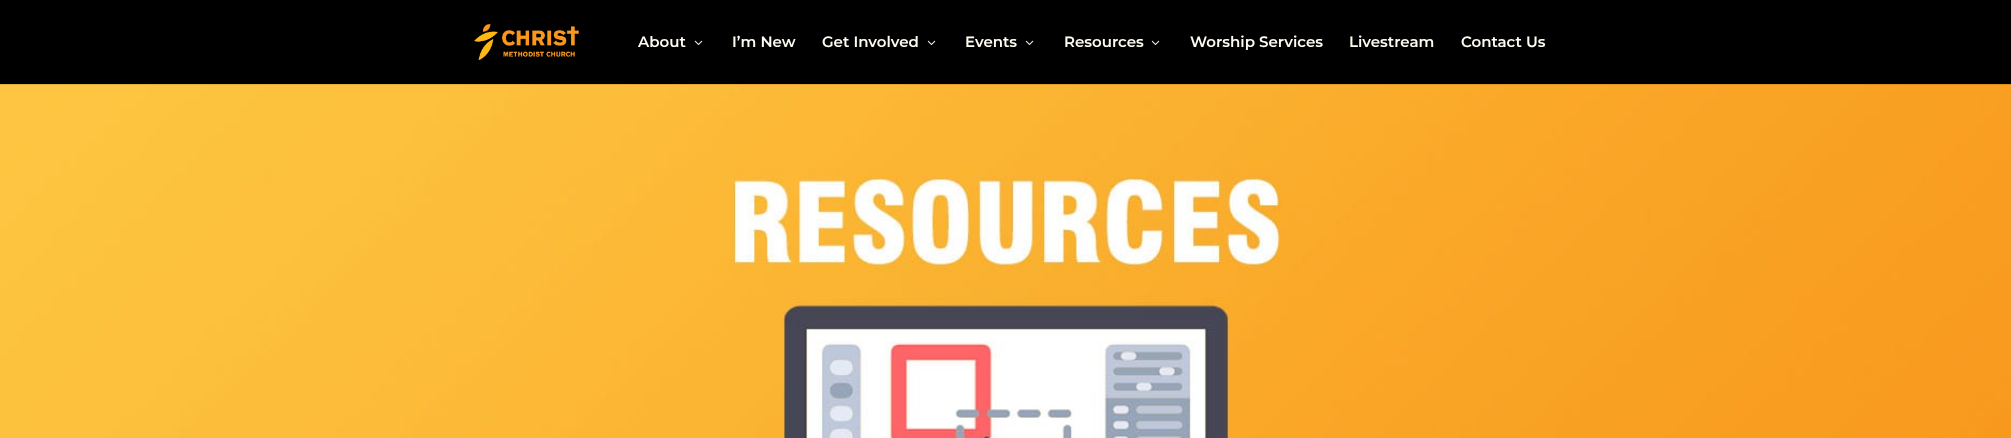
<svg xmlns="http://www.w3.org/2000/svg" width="2011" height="438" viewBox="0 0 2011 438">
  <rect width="100%" height="100%" fill="rgb(255,255,255)"/>
  <image x="0" y="84" width="2011" height="354" href="pic3.png"/>
  <rect x="0" y="84" width="2011" height="1" fill="rgba(0,0,0,0.1)"/>
  <rect x="0" y="0" width="2011" height="84" fill="rgb(0,0,0)"/>
  <image x="474" y="24" width="105" height="37" href="pic1.png"/>
  <text x="638" y="47" font-family="Montserrat" font-size="15" font-weight="600" fill="rgb(255,252,242)">About</text>
  <image x="694" y="40" width="9" height="5" href="pic2.png"/>
  <g font-family="Montserrat" font-size="15" font-weight="600" fill="rgb(255,252,242)">
    <text x="732" y="47">I’m New</text>
    <text x="822" y="47">Get Involved</text>
  </g>
  <image x="927" y="40" width="9" height="5" href="pic2.png"/>
  <text x="965" y="47" font-family="Montserrat" font-size="15" font-weight="600" fill="rgb(255,252,242)">Events</text>
  <image x="1025" y="40" width="9" height="5" href="pic2.png"/>
  <text x="1064" y="47" font-family="Montserrat" font-size="15" font-weight="600" fill="rgb(255,252,242)">Resources</text>
  <image x="1151" y="40" width="9" height="5" href="pic2.png"/>
  <g font-family="Montserrat" font-size="15" font-weight="600" fill="rgb(255,252,242)">
    <text x="1190" y="47">Worship Services</text>
    <text x="1349" y="47">Livestream</text>
    <text x="1461" y="47">Contact Us</text>
  </g>
</svg>
